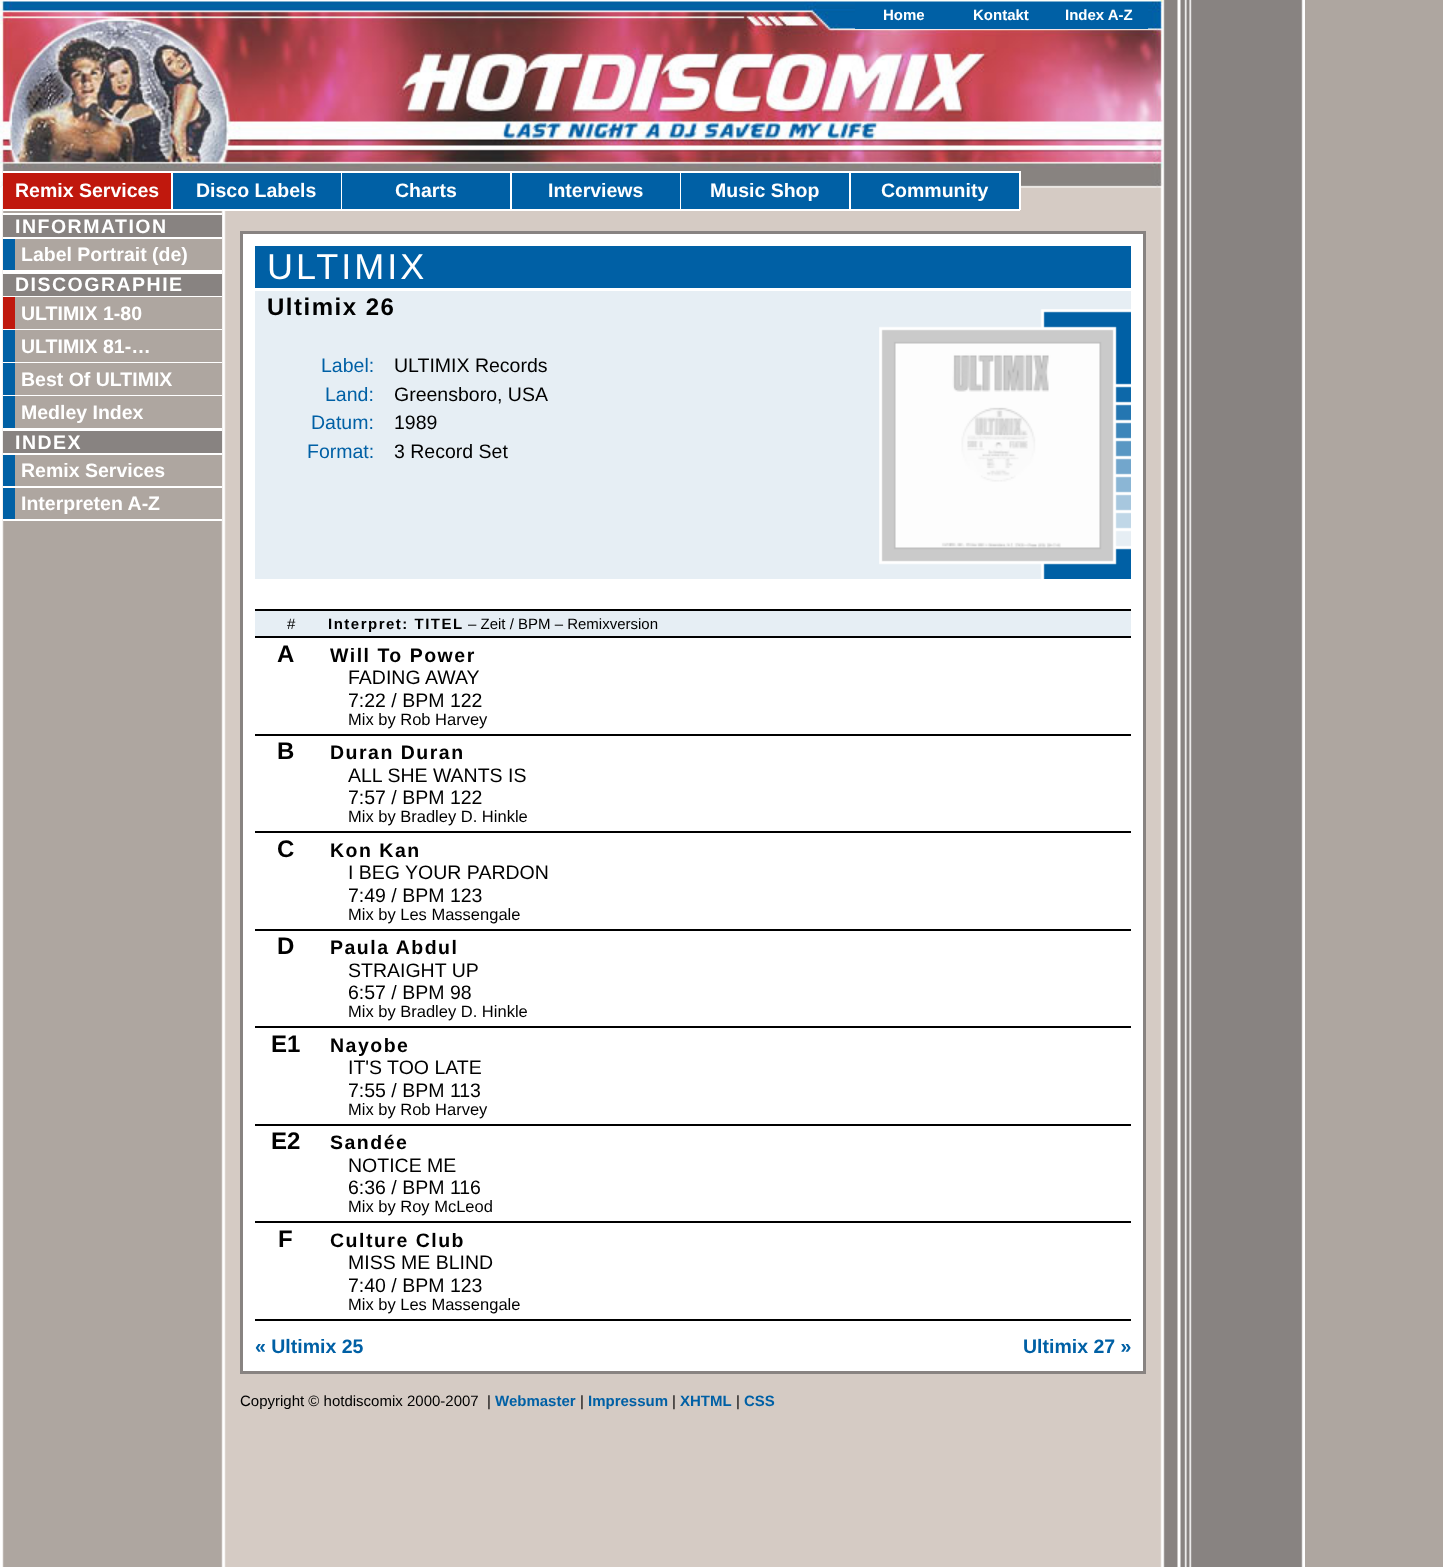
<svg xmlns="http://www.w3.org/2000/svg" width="1443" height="1567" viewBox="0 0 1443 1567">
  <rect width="100%" height="100%" fill="rgb(174,166,160)"/>
  <image x="0" y="0" width="1305" height="1567" href="pic1.png"/>
  <image x="0" y="0" width="1163" height="188" href="pic2.png"/>
  <rect x="855" y="2" width="293" height="27" fill="rgb(0,96,165)"/>
  <g font-family="Liberation Sans" font-size="15" font-weight="bold" fill="rgb(255,255,255)">
    <text x="883" y="20">Home</text>
    <text x="973" y="20">Kontakt</text>
    <text x="1065" y="20">Index A-Z</text>
  </g>
  <rect x="3" y="173" width="168" height="36" fill="rgb(192,24,13)"/>
  <rect x="3" y="171" width="1017" height="2" fill="rgb(255,255,255)"/>
  <rect x="171" y="171" width="2" height="39" fill="rgb(255,255,255)"/>
  <rect x="3" y="209" width="170" height="2" fill="rgb(255,255,255)"/>
  <text x="15" y="197" font-family="Liberation Sans" font-size="19.5" font-weight="bold" fill="rgb(255,255,255)">Remix Services</text>
  <rect x="173" y="173" width="168" height="36" fill="rgb(0,96,165)"/>
  <rect x="341" y="171" width="1" height="39" fill="rgb(255,255,255)"/>
  <rect x="173" y="209" width="169" height="2" fill="rgb(255,255,255)"/>
  <text x="196" y="197" font-family="Liberation Sans" font-size="19.5" font-weight="bold" fill="rgb(255,255,255)">Disco Labels</text>
  <rect x="342" y="173" width="168" height="36" fill="rgb(0,96,165)"/>
  <rect x="510" y="171" width="2" height="39" fill="rgb(255,255,255)"/>
  <rect x="342" y="209" width="170" height="2" fill="rgb(255,255,255)"/>
  <text x="395" y="197" font-family="Liberation Sans" font-size="19.5" font-weight="bold" fill="rgb(255,255,255)">Charts</text>
  <rect x="512" y="173" width="168" height="36" fill="rgb(0,96,165)"/>
  <rect x="680" y="171" width="1" height="39" fill="rgb(255,255,255)"/>
  <rect x="512" y="209" width="169" height="2" fill="rgb(255,255,255)"/>
  <text x="548" y="197" font-family="Liberation Sans" font-size="19.5" font-weight="bold" fill="rgb(255,255,255)">Interviews</text>
  <rect x="681" y="173" width="168" height="36" fill="rgb(0,96,165)"/>
  <rect x="849" y="171" width="2" height="39" fill="rgb(255,255,255)"/>
  <rect x="681" y="209" width="170" height="2" fill="rgb(255,255,255)"/>
  <text x="710" y="197" font-family="Liberation Sans" font-size="19.5" font-weight="bold" fill="rgb(255,255,255)">Music Shop</text>
  <rect x="851" y="173" width="168" height="36" fill="rgb(0,96,165)"/>
  <rect x="1019" y="171" width="2" height="39" fill="rgb(255,255,255)"/>
  <rect x="851" y="209" width="169" height="2" fill="rgb(255,255,255)"/>
  <text x="881" y="197" font-family="Liberation Sans" font-size="19.5" font-weight="bold" fill="rgb(255,255,255)">Community</text>
  <rect x="3" y="215" width="219" height="22" fill="rgb(136,131,129)"/>
  <rect x="3" y="213" width="219" height="2" fill="rgb(255,255,255)"/>
  <rect x="3" y="237" width="219" height="2" fill="rgb(255,255,255)"/>
  <text x="15" y="233" font-family="Liberation Sans" font-size="19.5" font-weight="bold" letter-spacing="1.5" fill="rgb(255,255,255)">INFORMATION</text>
  <rect x="3" y="270" width="219" height="4" fill="rgb(255,255,255)"/>
  <rect x="221" y="239" width="1" height="31" fill="rgb(174,166,160)"/>
  <rect x="3" y="239" width="12" height="31" fill="rgb(0,96,165)"/>
  <text x="21" y="261" font-family="Liberation Sans" font-size="19.5" font-weight="bold" fill="rgb(255,255,255)">Label Portrait (de)</text>
  <rect x="3" y="274" width="219" height="22" fill="rgb(136,131,129)"/>
  <rect x="3" y="296" width="219" height="1" fill="rgb(255,255,255)"/>
  <text x="15" y="291" font-family="Liberation Sans" font-size="19.5" font-weight="bold" letter-spacing="1.5" fill="rgb(255,255,255)">DISCOGRAPHIE</text>
  <rect x="3" y="329" width="219" height="1" fill="rgb(255,255,255)"/>
  <rect x="221" y="297" width="1" height="32" fill="rgb(174,166,160)"/>
  <rect x="3" y="297" width="12" height="32" fill="rgb(192,24,13)"/>
  <text x="21" y="320" font-family="Liberation Sans" font-size="19.5" font-weight="bold" fill="rgb(255,255,255)">ULTIMIX 1-80</text>
  <rect x="3" y="362" width="219" height="1" fill="rgb(255,255,255)"/>
  <rect x="221" y="330" width="1" height="32" fill="rgb(174,166,160)"/>
  <rect x="3" y="330" width="12" height="32" fill="rgb(0,96,165)"/>
  <text x="21" y="353" font-family="Liberation Sans" font-size="19.5" font-weight="bold" fill="rgb(255,255,255)">ULTIMIX 81-…</text>
  <rect x="3" y="395" width="219" height="1" fill="rgb(255,255,255)"/>
  <rect x="221" y="363" width="1" height="32" fill="rgb(174,166,160)"/>
  <rect x="3" y="363" width="12" height="32" fill="rgb(0,96,165)"/>
  <text x="21" y="386" font-family="Liberation Sans" font-size="19.5" font-weight="bold" fill="rgb(255,255,255)">Best Of ULTIMIX</text>
  <rect x="3" y="428" width="219" height="3" fill="rgb(255,255,255)"/>
  <rect x="221" y="396" width="1" height="32" fill="rgb(174,166,160)"/>
  <rect x="3" y="396" width="12" height="32" fill="rgb(0,96,165)"/>
  <text x="21" y="419" font-family="Liberation Sans" font-size="19.5" font-weight="bold" fill="rgb(255,255,255)">Medley Index</text>
  <rect x="3" y="431" width="219" height="22" fill="rgb(136,131,129)"/>
  <rect x="3" y="453" width="219" height="2" fill="rgb(255,255,255)"/>
  <text x="15" y="449" font-family="Liberation Sans" font-size="19.5" font-weight="bold" letter-spacing="1.5" fill="rgb(255,255,255)">INDEX</text>
  <rect x="3" y="486" width="219" height="2" fill="rgb(255,255,255)"/>
  <rect x="221" y="455" width="1" height="31" fill="rgb(174,166,160)"/>
  <rect x="3" y="455" width="12" height="31" fill="rgb(0,96,165)"/>
  <text x="21" y="477" font-family="Liberation Sans" font-size="19.5" font-weight="bold" fill="rgb(255,255,255)">Remix Services</text>
  <rect x="3" y="519" width="219" height="2" fill="rgb(255,255,255)"/>
  <rect x="221" y="488" width="1" height="31" fill="rgb(174,166,160)"/>
  <rect x="3" y="488" width="12" height="31" fill="rgb(0,96,165)"/>
  <text x="21" y="510" font-family="Liberation Sans" font-size="19.5" font-weight="bold" fill="rgb(255,255,255)">Interpreten A-Z</text>
  <rect x="241.5" y="232.5" width="903" height="1140" fill="rgb(255,255,255)" stroke="rgb(136,131,129)" stroke-width="3"/>
  <rect x="255" y="246" width="876" height="42" fill="rgb(0,96,165)"/>
  <text x="267" y="279" font-family="Liberation Sans" font-size="36" letter-spacing="3" fill="rgb(255,255,255)">ULTIMIX</text>
  <rect x="255" y="291" width="876" height="288" fill="rgb(230,238,244)"/>
  <image x="879" y="309" width="252" height="270" href="pic3.png"/>
  <text x="267" y="315" font-family="Liberation Sans" font-size="24" font-weight="bold" letter-spacing="1.5" fill="rgb(0,0,0)">Ultimix 26</text>
  <text x="321" y="372" font-family="Liberation Sans" font-size="19.5" fill="rgb(0,96,165)">Label:</text>
  <text x="394" y="372" font-family="Liberation Sans" font-size="19.5" fill="rgb(0,0,0)">ULTIMIX Records</text>
  <text x="325" y="401" font-family="Liberation Sans" font-size="19.5" fill="rgb(0,96,165)">Land:</text>
  <text x="394" y="401" font-family="Liberation Sans" font-size="19.5" fill="rgb(0,0,0)">Greensboro, USA</text>
  <text x="311" y="429" font-family="Liberation Sans" font-size="19.5" fill="rgb(0,96,165)">Datum:</text>
  <text x="394" y="429" font-family="Liberation Sans" font-size="19.5" fill="rgb(0,0,0)">1989</text>
  <text x="307" y="458" font-family="Liberation Sans" font-size="19.5" fill="rgb(0,96,165)">Format:</text>
  <text x="394" y="458" font-family="Liberation Sans" font-size="19.5" fill="rgb(0,0,0)">3 Record Set</text>
  <image x="881" y="329" width="233" height="233" href="pic4.png"/>
  <rect x="255" y="611" width="876" height="25" fill="rgb(230,238,244)"/>
  <rect x="255" y="609" width="876" height="2" fill="rgb(0,0,0)"/>
  <rect x="255" y="636" width="876" height="2" fill="rgb(0,0,0)"/>
  <text x="287" y="629" font-family="Liberation Sans" font-size="15" fill="rgb(0,0,0)">#</text>
  <text x="328" y="629" font-family="Liberation Sans" font-size="15" font-weight="bold" letter-spacing="1.5" fill="rgb(0,0,0)">Interpret: TITEL</text>
  <text x="468" y="629" font-family="Liberation Sans" font-size="15" fill="rgb(0,0,0)">– Zeit / BPM – Remixversion</text>
  <rect x="255" y="734" width="876" height="2" fill="rgb(0,0,0)"/>
  <text x="277" y="662" font-family="Liberation Sans" font-size="24" font-weight="bold" fill="rgb(0,0,0)">A</text>
  <text x="330" y="662" font-family="Liberation Sans" font-size="19.5" font-weight="bold" letter-spacing="1.5" fill="rgb(0,0,0)">Will To Power</text>
  <g font-family="Liberation Sans" font-size="19.5" fill="rgb(0,0,0)">
    <text>
      <tspan x="348" y="684">FADING AWAY</tspan>
      <tspan x="348" y="707">7:22 / BPM 122</tspan>
    </text>
  </g>
  <text x="348" y="725" font-family="Liberation Sans" font-size="16.5" fill="rgb(0,0,0)">Mix by Rob Harvey</text>
  <rect x="255" y="831" width="876" height="2" fill="rgb(0,0,0)"/>
  <text x="277" y="759" font-family="Liberation Sans" font-size="24" font-weight="bold" fill="rgb(0,0,0)">B</text>
  <text x="330" y="759" font-family="Liberation Sans" font-size="19.5" font-weight="bold" letter-spacing="1.5" fill="rgb(0,0,0)">Duran Duran</text>
  <g font-family="Liberation Sans" font-size="19.5" fill="rgb(0,0,0)">
    <text>
      <tspan x="348" y="782">ALL SHE WANTS IS</tspan>
      <tspan x="348" y="804">7:57 / BPM 122</tspan>
    </text>
  </g>
  <text x="348" y="822" font-family="Liberation Sans" font-size="16.5" fill="rgb(0,0,0)">Mix by Bradley D. Hinkle</text>
  <rect x="255" y="929" width="876" height="2" fill="rgb(0,0,0)"/>
  <text x="277" y="857" font-family="Liberation Sans" font-size="24" font-weight="bold" fill="rgb(0,0,0)">C</text>
  <text x="330" y="857" font-family="Liberation Sans" font-size="19.5" font-weight="bold" letter-spacing="1.5" fill="rgb(0,0,0)">Kon Kan</text>
  <g font-family="Liberation Sans" font-size="19.5" fill="rgb(0,0,0)">
    <text>
      <tspan x="348" y="879">I BEG YOUR PARDON</tspan>
      <tspan x="348" y="902">7:49 / BPM 123</tspan>
    </text>
  </g>
  <text x="348" y="920" font-family="Liberation Sans" font-size="16.5" fill="rgb(0,0,0)">Mix by Les Massengale</text>
  <rect x="255" y="1026" width="876" height="2" fill="rgb(0,0,0)"/>
  <text x="277" y="954" font-family="Liberation Sans" font-size="24" font-weight="bold" fill="rgb(0,0,0)">D</text>
  <text x="330" y="954" font-family="Liberation Sans" font-size="19.5" font-weight="bold" letter-spacing="1.5" fill="rgb(0,0,0)">Paula Abdul</text>
  <g font-family="Liberation Sans" font-size="19.5" fill="rgb(0,0,0)">
    <text>
      <tspan x="348" y="977">STRAIGHT UP</tspan>
      <tspan x="348" y="999">6:57 / BPM 98</tspan>
    </text>
  </g>
  <text x="348" y="1017" font-family="Liberation Sans" font-size="16.5" fill="rgb(0,0,0)">Mix by Bradley D. Hinkle</text>
  <rect x="255" y="1124" width="876" height="2" fill="rgb(0,0,0)"/>
  <text x="271" y="1052" font-family="Liberation Sans" font-size="24" font-weight="bold" fill="rgb(0,0,0)">E1</text>
  <text x="330" y="1052" font-family="Liberation Sans" font-size="19.5" font-weight="bold" letter-spacing="1.5" fill="rgb(0,0,0)">Nayobe</text>
  <g font-family="Liberation Sans" font-size="19.5" fill="rgb(0,0,0)">
    <text>
      <tspan x="348" y="1074">IT'S TOO LATE</tspan>
      <tspan x="348" y="1097">7:55 / BPM 113</tspan>
    </text>
  </g>
  <text x="348" y="1115" font-family="Liberation Sans" font-size="16.5" fill="rgb(0,0,0)">Mix by Rob Harvey</text>
  <rect x="255" y="1221" width="876" height="2" fill="rgb(0,0,0)"/>
  <text x="271" y="1149" font-family="Liberation Sans" font-size="24" font-weight="bold" fill="rgb(0,0,0)">E2</text>
  <text x="330" y="1149" font-family="Liberation Sans" font-size="19.5" font-weight="bold" letter-spacing="1.5" fill="rgb(0,0,0)">Sandée</text>
  <g font-family="Liberation Sans" font-size="19.5" fill="rgb(0,0,0)">
    <text>
      <tspan x="348" y="1172">NOTICE ME</tspan>
      <tspan x="348" y="1194">6:36 / BPM 116</tspan>
    </text>
  </g>
  <text x="348" y="1212" font-family="Liberation Sans" font-size="16.5" fill="rgb(0,0,0)">Mix by Roy McLeod</text>
  <rect x="255" y="1319" width="876" height="2" fill="rgb(0,0,0)"/>
  <text x="278" y="1247" font-family="Liberation Sans" font-size="24" font-weight="bold" fill="rgb(0,0,0)">F</text>
  <text x="330" y="1247" font-family="Liberation Sans" font-size="19.5" font-weight="bold" letter-spacing="1.5" fill="rgb(0,0,0)">Culture Club</text>
  <g font-family="Liberation Sans" font-size="19.5" fill="rgb(0,0,0)">
    <text>
      <tspan x="348" y="1269">MISS ME BLIND</tspan>
      <tspan x="348" y="1292">7:40 / BPM 123</tspan>
    </text>
  </g>
  <text x="348" y="1310" font-family="Liberation Sans" font-size="16.5" fill="rgb(0,0,0)">Mix by Les Massengale</text>
  <g font-family="Liberation Sans" font-size="19.5" font-weight="bold" fill="rgb(0,96,165)">
    <text x="255" y="1353">« Ultimix 25</text>
    <text x="1023" y="1353">Ultimix 27 »</text>
  </g>
  <text x="240" y="1406" font-family="Liberation Sans" font-size="15" fill="rgb(0,0,0)" xml:space="preserve">Copyright © hotdiscomix 2000-2007  |</text>
  <text x="495" y="1406" font-family="Liberation Sans" font-size="15" font-weight="bold" fill="rgb(0,96,165)">Webmaster</text>
  <text x="580" y="1406" font-family="Liberation Sans" font-size="15" fill="rgb(0,0,0)">|</text>
  <text x="588" y="1406" font-family="Liberation Sans" font-size="15" font-weight="bold" fill="rgb(0,96,165)">Impressum</text>
  <text x="672" y="1406" font-family="Liberation Sans" font-size="15" fill="rgb(0,0,0)">|</text>
  <text x="680" y="1406" font-family="Liberation Sans" font-size="15" font-weight="bold" fill="rgb(0,96,165)">XHTML</text>
  <text x="736" y="1406" font-family="Liberation Sans" font-size="15" fill="rgb(0,0,0)">|</text>
  <text x="744" y="1406" font-family="Liberation Sans" font-size="15" font-weight="bold" fill="rgb(0,96,165)">CSS</text>
</svg>
